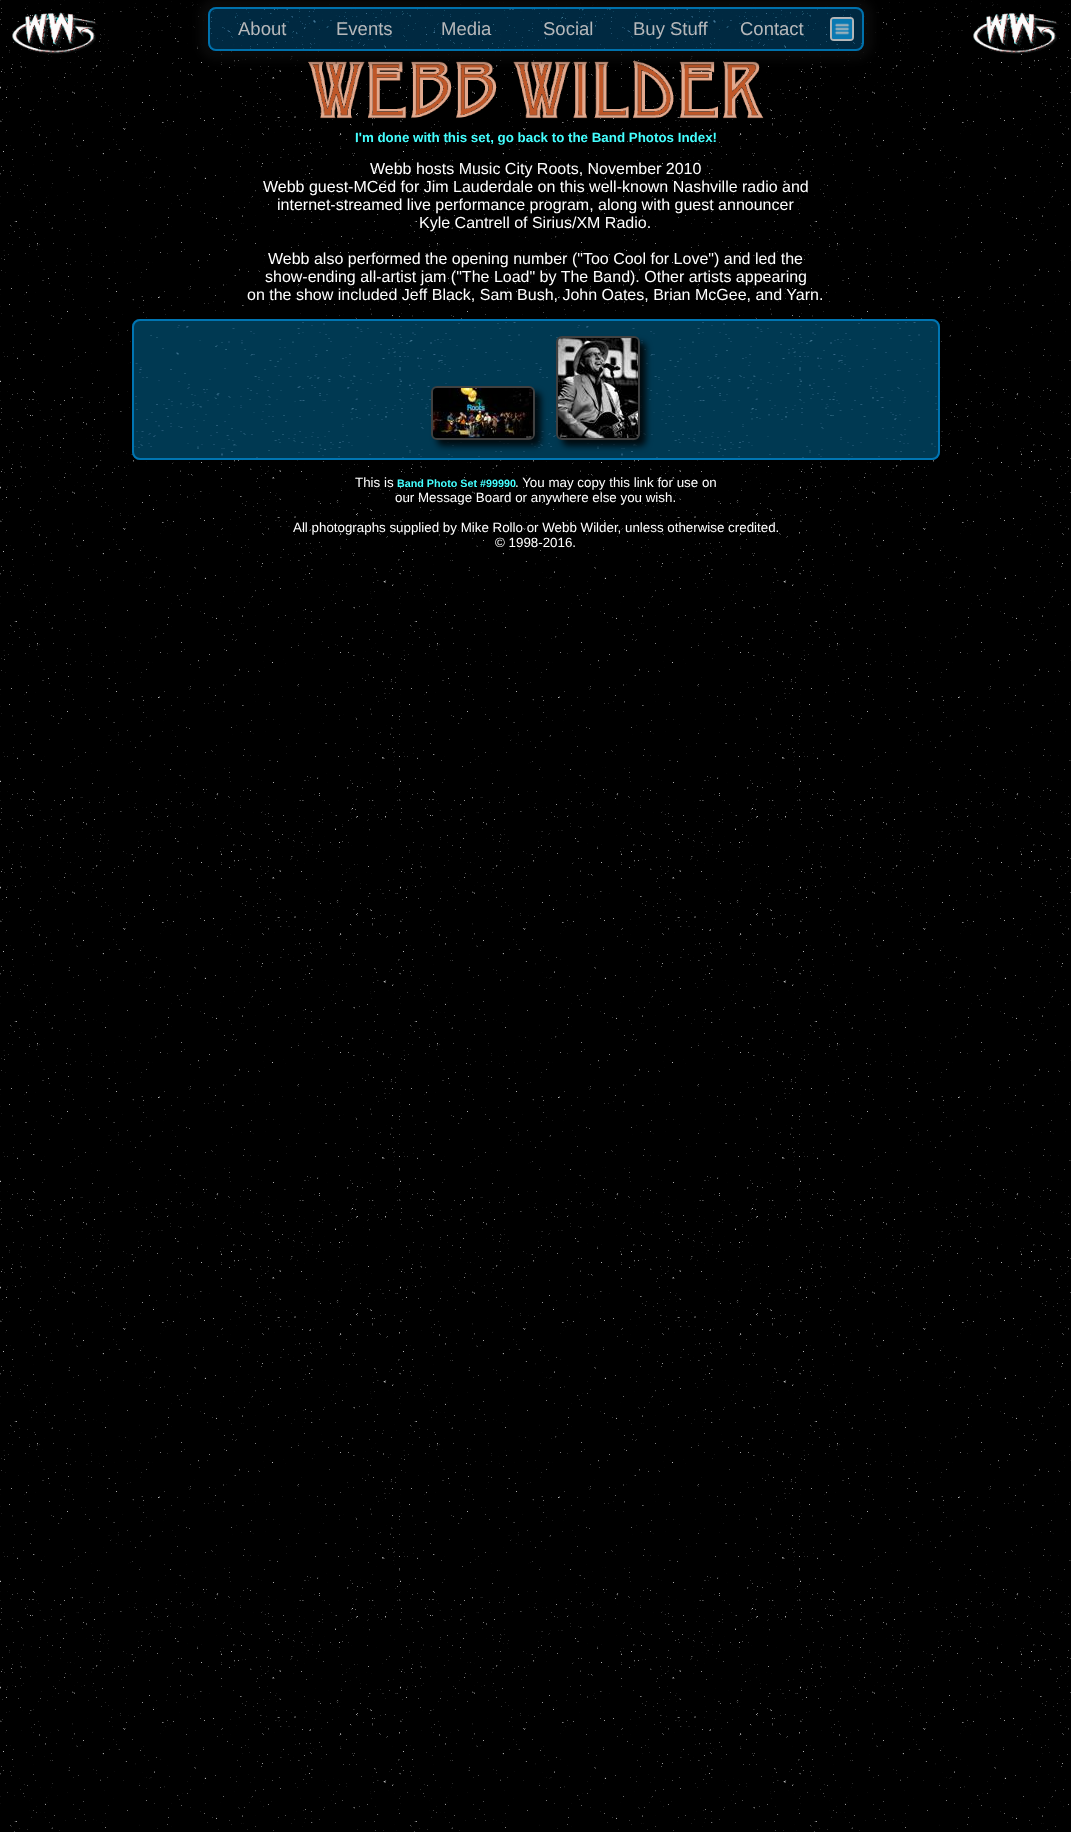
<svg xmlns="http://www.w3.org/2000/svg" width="1071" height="1832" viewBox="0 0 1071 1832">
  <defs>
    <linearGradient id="g1" gradientUnits="userSpaceOnUse" x1="536" y1="0" x2="536" y2="68"><stop offset="0" stop-color="rgb(0,0,0)"/><stop offset="0.15" stop-color="rgb(0,0,0)" stop-opacity="0.01"/></linearGradient>
    <clipPath id="clip1"><path d="M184 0H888V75H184ZM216 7H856C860.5 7 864 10.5 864 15V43C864 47.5 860.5 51 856 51H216C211.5 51 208 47.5 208 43V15C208 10.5 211.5 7 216 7Z" clip-rule="evenodd"/></clipPath>
  </defs>
  <rect width="100%" height="100%" fill="rgb(255,255,255)"/>
  <image x="0" y="0" width="1071" height="1832" href="pic1.png"/>
  <image x="308" y="61" width="456" height="58" href="pic6.png"/>
  <rect x="0" y="0" width="1071" height="68" rx="8" fill="url(#g1)"/>
  <image x="12" y="12" width="86" height="42" href="pic2.png"/>
  <g clip-path="url(#clip1)">
    <rect x="199" y="-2" width="674" height="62" rx="17" fill="rgba(10,10,10,0.85)" filter="blur(4.5px)"/>
  </g>
  <image x="208" y="7" width="656" height="44" href="pic3.png"/>
  <rect x="209" y="8" width="654" height="42" rx="7" fill="none" stroke="rgba(0,117,178,0.95)" stroke-width="2"/>
  <g font-family="Liberation Sans" font-size="18.5" fill="rgb(182,184,186)">
    <text x="238" y="35">About</text>
    <text x="336" y="35">Events</text>
    <text x="441" y="35">Media</text>
    <text x="543" y="35">Social</text>
    <text x="633" y="35">Buy Stuff</text>
    <text x="740" y="35">Contact</text>
  </g>
  <rect x="830" y="17" width="24" height="24" rx="4" fill="rgba(192,192,192,0.95)"/>
  <image x="831" y="18" width="22" height="22" href="pic4.png"/>
  <image x="973" y="12" width="86" height="42" href="pic5.png"/>
  <text x="355" y="142" font-family="Liberation Sans" font-size="13.35" font-weight="bold" fill="rgb(68,255,255)">I'm done with this set, go back to the Band Photos Index!</text>
  <g font-family="Liberation Sans" font-size="16" fill="rgb(255,255,255)">
    <text x="370" y="174">Webb hosts Music City Roots, November 2010</text>
    <text x="263" y="192">Webb guest-MCed for Jim Lauderdale on this well-known Nashville radio and</text>
    <text x="277" y="210">internet-streamed live performance program, along with guest announcer</text>
    <text x="419" y="228">Kyle Cantrell of Sirius/XM Radio.</text>
    <text x="268" y="264">Webb also performed the opening number ("Too Cool for Love") and led the</text>
    <text x="265" y="282">show-ending all-artist jam ("The Load" by The Band). Other artists appearing</text>
    <text x="247" y="300">on the show included Jeff Black, Sam Bush, John Oates, Brian McGee, and Yarn.</text>
  </g>
  <image x="132" y="319" width="808" height="141" href="pic7.png"/>
  <rect x="133" y="320" width="806" height="139" rx="7" fill="none" stroke="rgb(0,117,178)" stroke-width="2"/>
  <rect x="562" y="342" width="84" height="104" rx="6" fill="rgba(0,0,0,0.8)" filter="blur(3px)"/>
  <rect x="557" y="337" width="82" height="102" rx="5" fill="none" stroke="rgb(64,64,64)" stroke-width="2"/>
  <rect x="437" y="392" width="104" height="54" rx="6" fill="rgba(0,0,0,0.8)" filter="blur(3px)"/>
  <image x="558" y="338" width="80" height="100" href="pic8.png"/>
  <rect x="432" y="387" width="102" height="52" rx="5" fill="none" stroke="rgb(64,64,64)" stroke-width="2"/>
  <image x="433" y="388" width="100" height="50" href="pic9.png"/>
  <text x="355" y="487" font-family="Liberation Sans" font-size="13.35" fill="rgb(255,255,255)">This is</text>
  <text x="397" y="487" font-family="Liberation Sans" font-size="10.75" font-weight="bold" fill="rgb(68,255,255)">Band Photo Set #99990</text>
  <g font-family="Liberation Sans" font-size="13.35" fill="rgb(255,255,255)">
    <text x="515" y="487">. You may copy this link for use on</text>
    <text x="395" y="502">our Message Board or anywhere else you wish.</text>
    <text x="293" y="532">All photographs supplied by Mike Rollo or Webb Wilder, unless otherwise credited.</text>
    <text x="495" y="547">© 1998-2016.</text>
  </g>
</svg>
